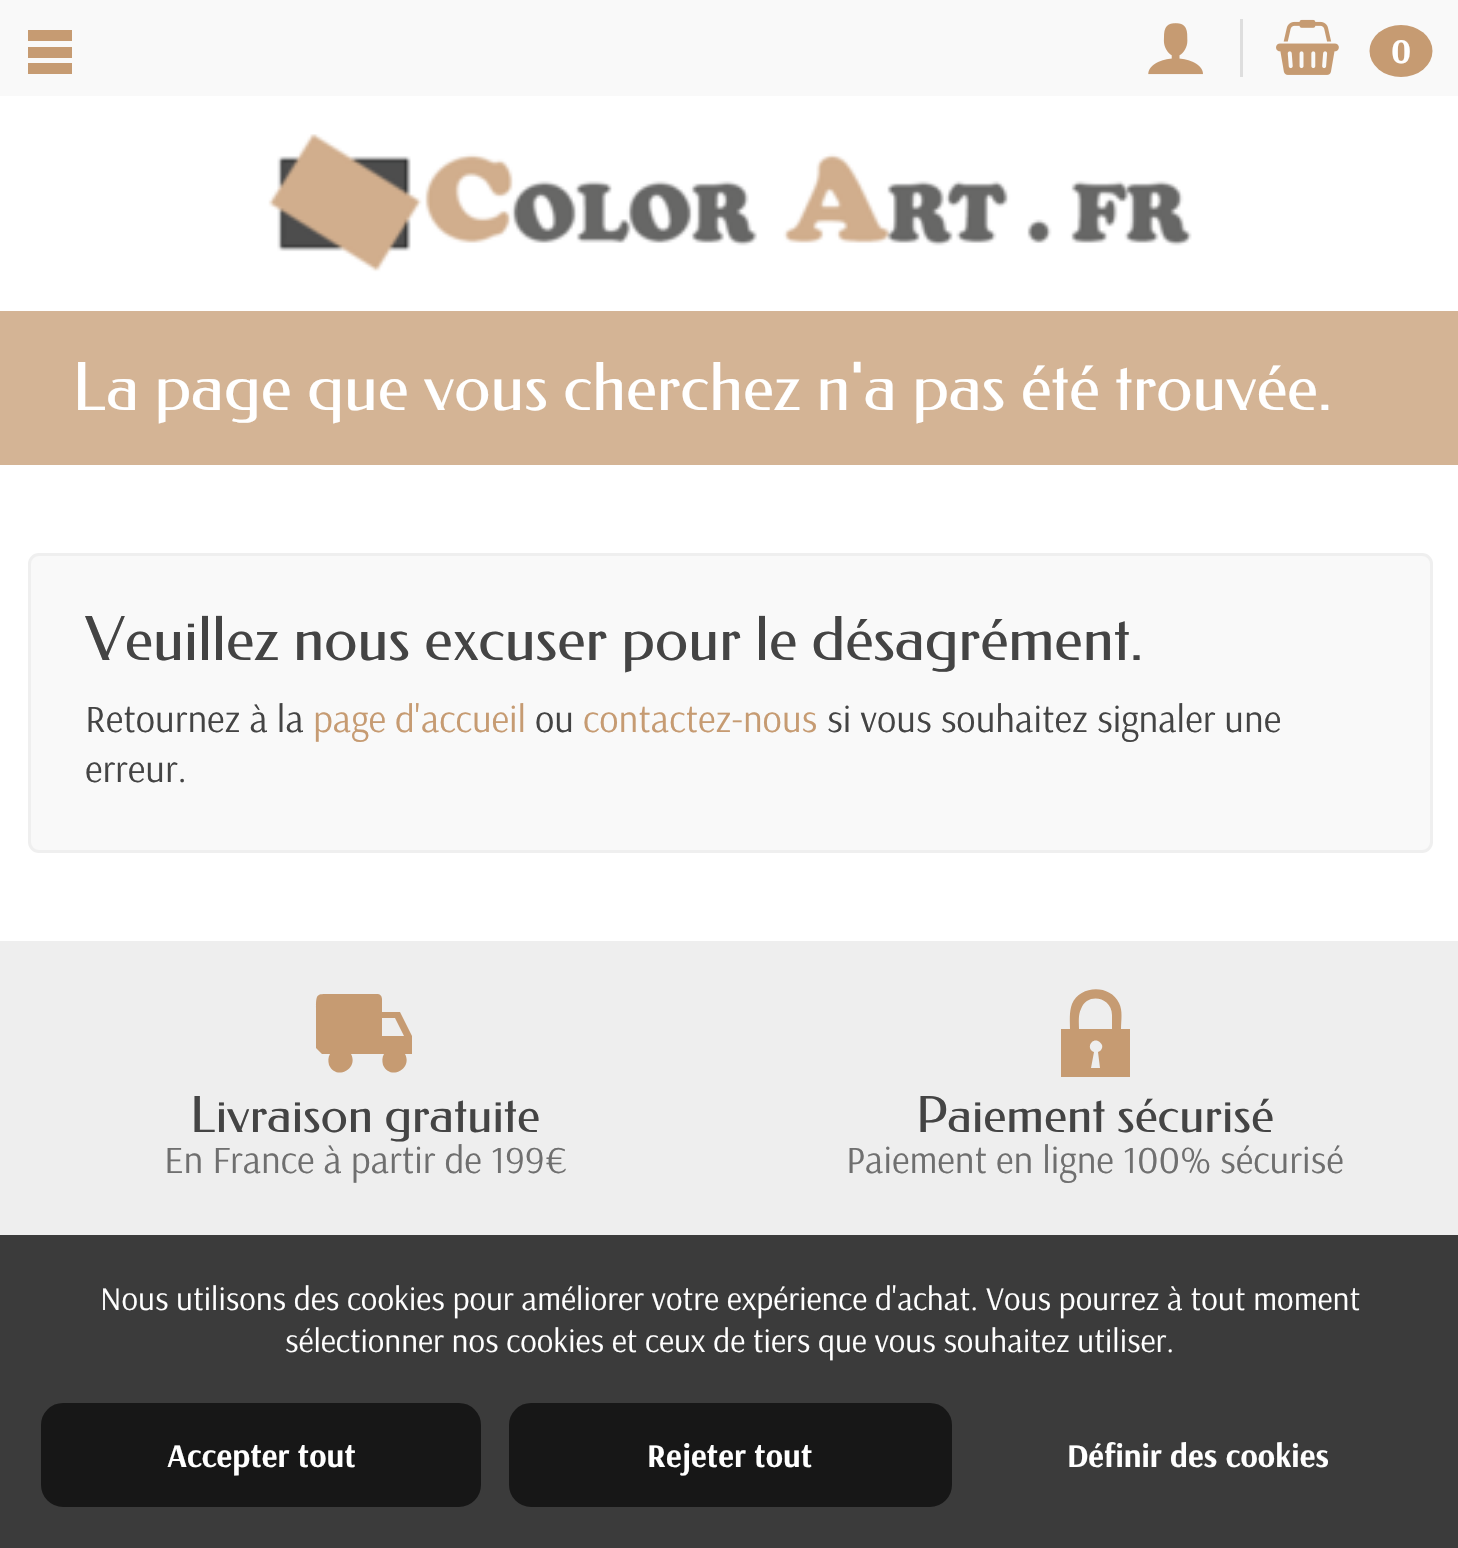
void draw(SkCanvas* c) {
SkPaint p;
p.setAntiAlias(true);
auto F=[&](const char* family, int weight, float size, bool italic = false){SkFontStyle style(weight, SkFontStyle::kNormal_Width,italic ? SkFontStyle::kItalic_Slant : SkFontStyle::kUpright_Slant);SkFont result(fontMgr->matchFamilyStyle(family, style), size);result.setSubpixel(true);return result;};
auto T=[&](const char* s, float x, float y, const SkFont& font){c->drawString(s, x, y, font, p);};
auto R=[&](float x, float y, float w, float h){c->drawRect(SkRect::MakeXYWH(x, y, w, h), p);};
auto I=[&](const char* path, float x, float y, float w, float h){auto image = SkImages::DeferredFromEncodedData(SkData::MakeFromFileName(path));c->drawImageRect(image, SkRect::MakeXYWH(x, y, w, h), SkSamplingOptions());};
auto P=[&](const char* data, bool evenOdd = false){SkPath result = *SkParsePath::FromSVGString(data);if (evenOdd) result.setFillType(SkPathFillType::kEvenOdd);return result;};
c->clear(0xffffffff);
p.setColor(0xfff9f9f9);
R(0,0,1458,96);
p.setColor(0xffc69b72);
c->drawPath(P("M28 30v11h44v-11zm0 28h44v-11h-44zm0 16h44v-11h-44z"),p);
I("1.png",1148,23,55,52);
p.setColor(0xffdedede);
R(1240,19,3,58);
I("2.png",1276,19,63,56);
p.setColor(0xffc69b72);
c->drawOval(SkRect::MakeXYWH(1369.5,25,63,52),p);
auto f1 = F("Arsenal",700,35);
p.setColor(0xffffffff);
T("0",1391,63,f1);
I("3.png",268,134,924,138);
p.setColor(0xffd4b495);
R(0,311,1458,154);
auto f2 = F("Federo",400,66.25);
p.setColor(0xffffffff);
T("La page que vous cherchez n'a pas été trouvée.",72,410,f2);
p.setColor(0xfff9f9f9);
c->drawRoundRect(SkRect::MakeXYWH(29.5,554.5,1402,297),9.5,9.5,p);
p.setStroke(true);
p.setStrokeWidth(3);
p.setColor(0xffefefef);
c->drawRoundRect(SkRect::MakeXYWH(29.5,554.5,1402,297),9.5,9.5,p);
auto f3 = F("Federo",400,60.75);
p.setStroke(false);
p.setColor(0xff444444);
T("Veuillez nous excuser pour le désagrément.",85,660,f3);
auto f4 = F("Arsenal",400,38.5);
T("Retournez à la",85,732,f4);
p.setColor(0xffc69b72);
T("page d'accueil",313,732,f4);
p.setColor(0xff444444);
T("ou",535,732,f4);
p.setColor(0xffc69b72);
T("contactez-nous",583,732,f4);
p.setColor(0xff444444);
T("si vous souhaitez signaler une",827,732,f4);
T("erreur.",85,782,f4);
p.setColor(0xffeeeeee);
R(0,941,1458,294);
p.setColor(0xffc69b72);
c->drawPath(P("M412 1036l-12-24h-18v-8c0-4 1-9-4-10h-47c-14 0-15-1-15 14v40l6 6h8c-2 3-2 7-1 11c7 16 30 4 22-11h33c-2 3-2 7-1 11c7 16 30 4 22-11h7zm-30 0v-18h13l9 18z"),p);
auto f5 = F("Federo",400,49.5);
p.setColor(0xff444444);
T("Livraison gratuite",190,1132,f5);
p.setColor(0xff6f6f6f);
T("En France à partir de 199€",164,1173,f4);
p.setColor(0xffc69b72);
c->drawPath(P("M1061 1077v-48h9c0-8-1-17 2-25c8-19 38-20 47-1c4 8 2 17 2 26h9v48zm33-25l-3 16h9l-2-16c3-1 5-4 4-7c-1-2-2-3-4-4c-7-3-12 8-4 11zm18-37c0-18-25-23-31-6c-3 6-2 13-2 20h33z"),p);
p.setColor(0xff444444);
T("Paiement sécurisé",916,1132,f5);
p.setColor(0xff6f6f6f);
T("Paiement en ligne 100% sécurisé",846,1173,f4);
p.setColor(0xff3b3b3b);
R(0,1235,1458,313);
auto f6 = F("Arsenal",400,33);
p.setColor(0xffffffff);
T("Nous utilisons des cookies pour améliorer votre expérience d'achat. Vous pourrez à tout moment",100,1310,f6);
T("sélectionner nos cookies et ceux de tiers que vous souhaitez utiliser.",285,1352,f6);
p.setColor(0xff171717);
c->drawRoundRect(SkRect::MakeXYWH(42.5,1404.5,437,101),20.5,20.5,p);
p.setStroke(true);
c->drawRoundRect(SkRect::MakeXYWH(42.5,1404.5,437,101),20.5,20.5,p);
auto f7 = F("Arsenal",700,33);
p.setStroke(false);
p.setColor(0xffffffff);
T("Accepter tout",167,1467,f7);
p.setColor(0xff171717);
c->drawRoundRect(SkRect::MakeXYWH(510.5,1404.5,440,101),20.5,20.5,p);
p.setStroke(true);
c->drawRoundRect(SkRect::MakeXYWH(510.5,1404.5,440,101),20.5,20.5,p);
p.setStroke(false);
p.setColor(0xffffffff);
T("Rejeter tout",647,1467,f7);
T("Définir des cookies",1067,1467,f7);
}
